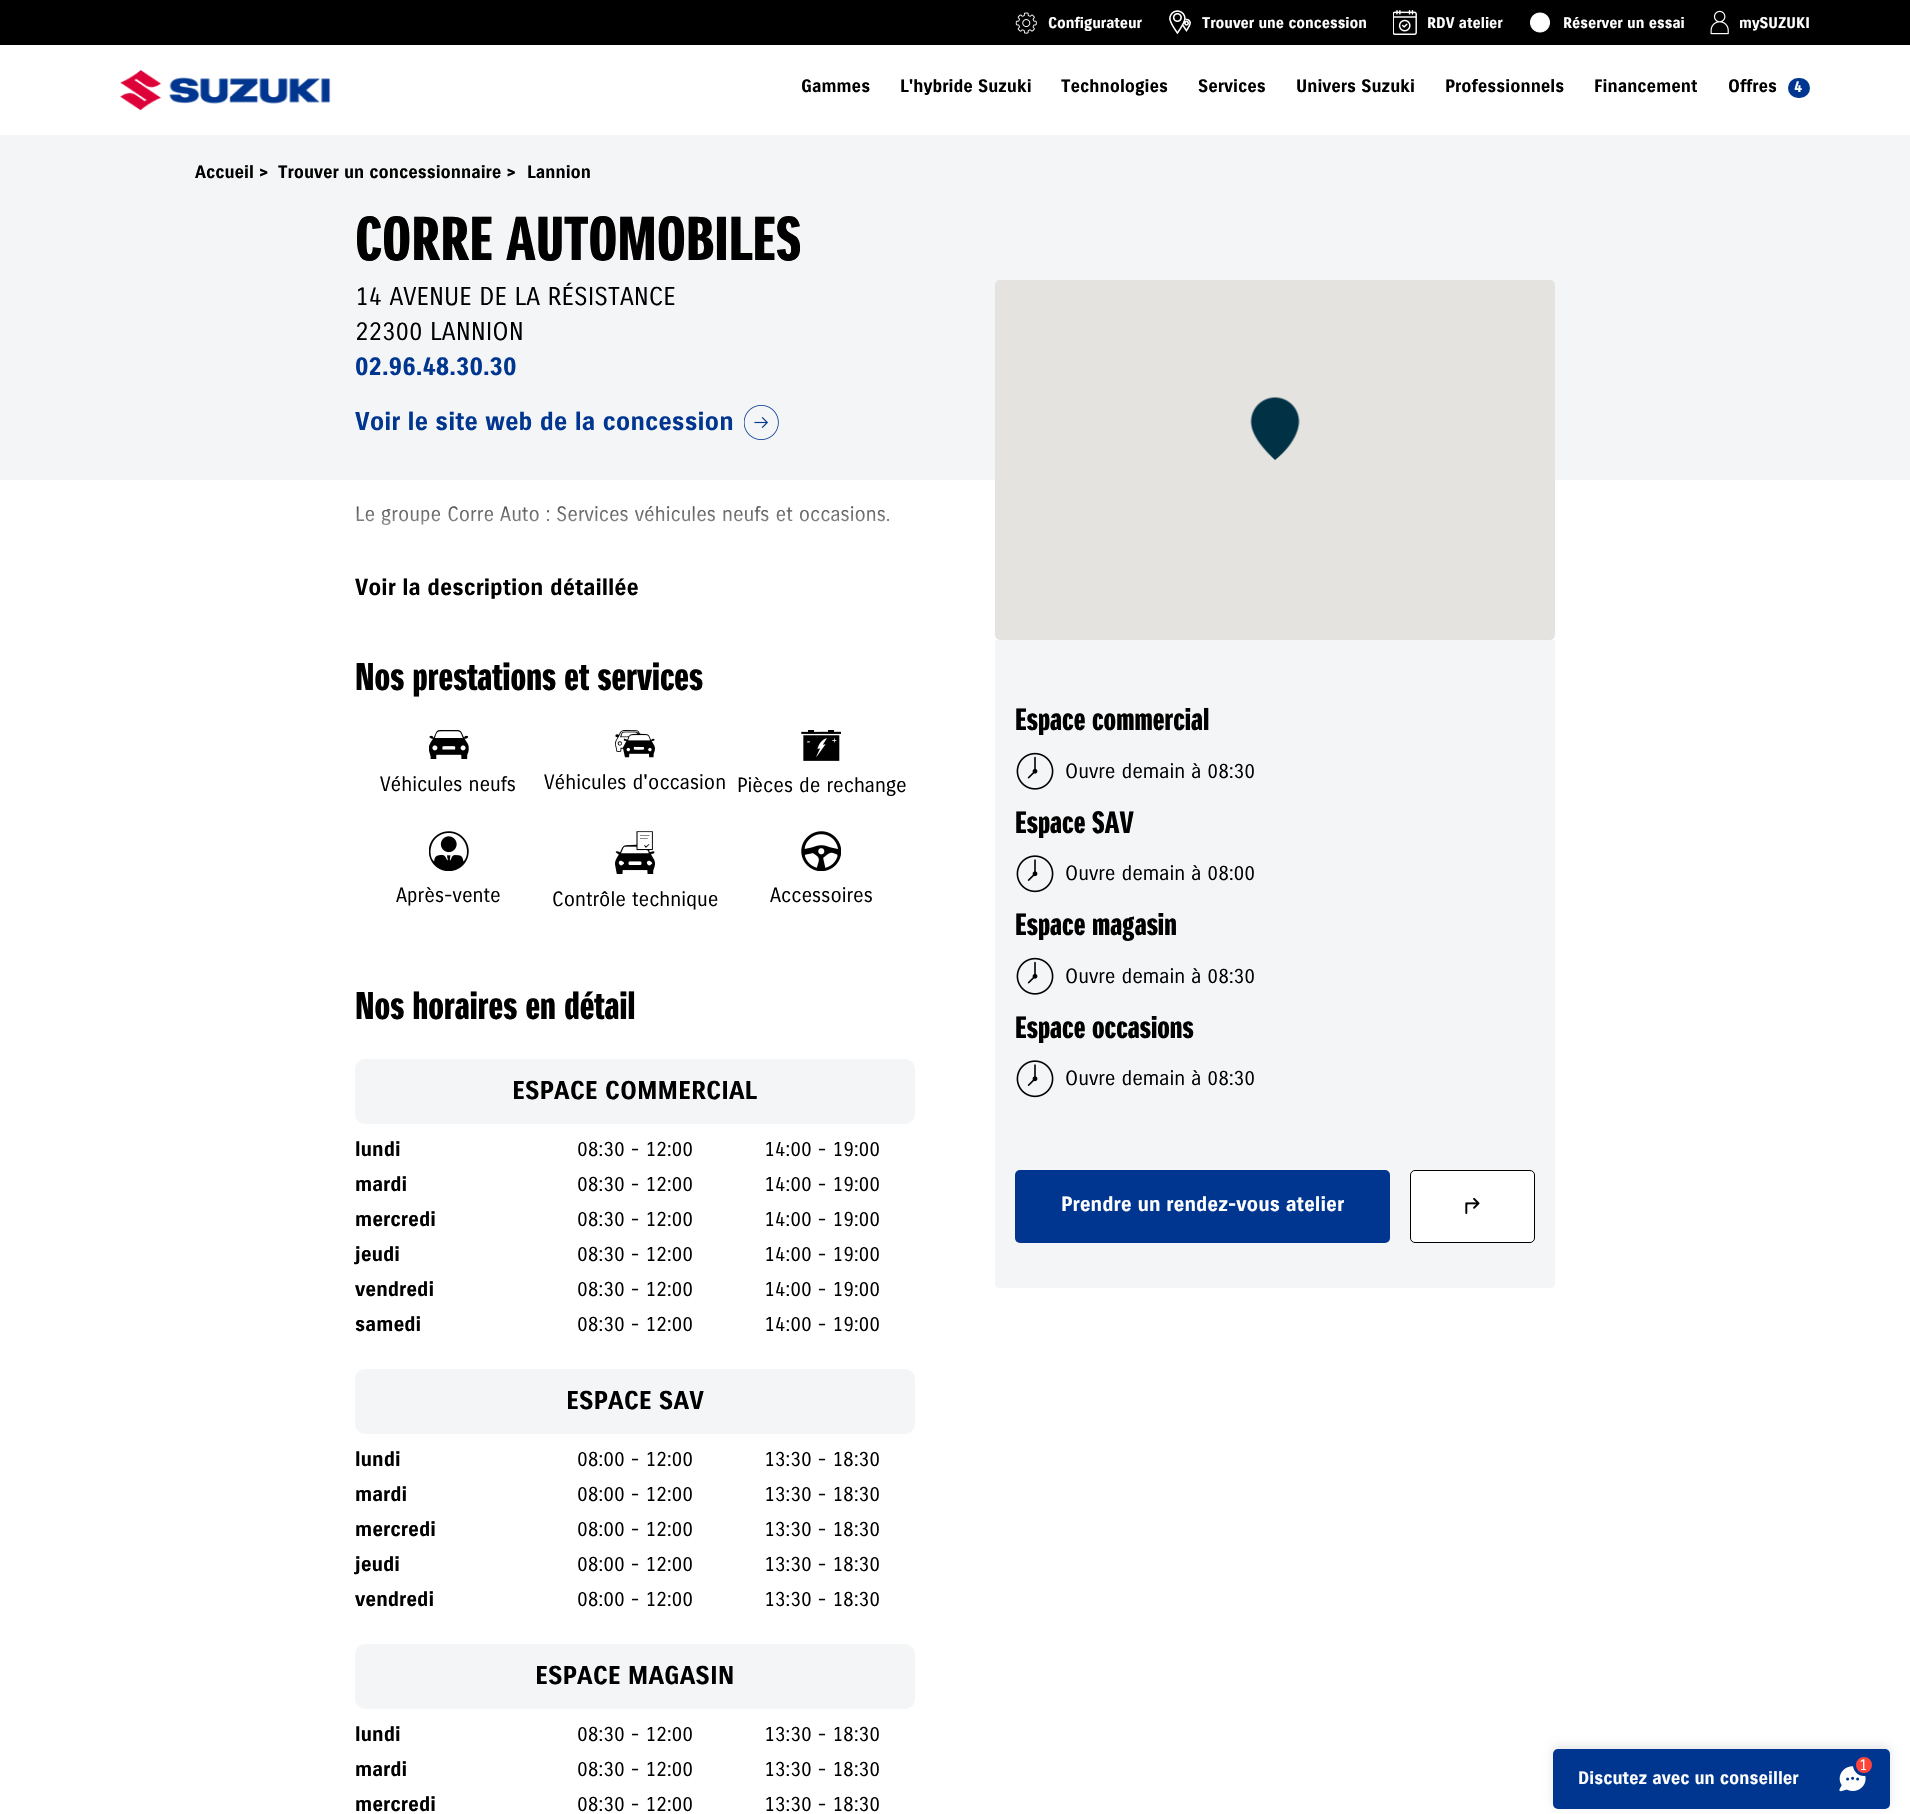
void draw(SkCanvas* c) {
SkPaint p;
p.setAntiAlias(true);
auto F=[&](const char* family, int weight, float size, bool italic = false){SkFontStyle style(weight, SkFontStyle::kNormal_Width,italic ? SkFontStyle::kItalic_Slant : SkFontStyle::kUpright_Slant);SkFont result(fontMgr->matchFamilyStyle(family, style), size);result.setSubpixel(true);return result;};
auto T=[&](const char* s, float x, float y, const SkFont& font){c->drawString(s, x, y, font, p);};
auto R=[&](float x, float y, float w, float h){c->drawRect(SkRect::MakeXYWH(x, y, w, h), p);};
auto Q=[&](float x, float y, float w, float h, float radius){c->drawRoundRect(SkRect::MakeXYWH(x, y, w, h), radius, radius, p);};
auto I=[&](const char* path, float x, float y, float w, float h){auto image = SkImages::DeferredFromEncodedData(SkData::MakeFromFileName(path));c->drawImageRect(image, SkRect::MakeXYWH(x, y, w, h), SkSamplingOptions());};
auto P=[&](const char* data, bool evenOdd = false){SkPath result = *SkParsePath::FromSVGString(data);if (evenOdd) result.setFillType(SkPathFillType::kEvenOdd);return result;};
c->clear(0xffffffff);
p.setColor(0xff000000);
R(0,0,1910,45);
I("1.png",1015,12,22,22);
auto f1 = F("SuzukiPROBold",700,15);
p.setColor(0xffffffff);
T("Configurateur",1048,28,f1);
I("2.png",1169,10,22,25);
T("Trouver une concession",1202,28,f1);
I("3.png",1393,10,24,25);
T("RDV atelier",1427,28,f1);
I("4.png",1530,12,20,21);
T("Réserver un essai",1563,28,f1);
I("5.png",1710,10,19,25);
T("mySUZUKI",1739,28,f1);
I("6.png",120,70,211,40);
auto f2 = F("SuzukiPROBold",700,17.5);
p.setColor(0xff000000);
T("Gammes",801,92,f2);
T("L'hybride Suzuki",900,92,f2);
T("Technologies",1061,92,f2);
T("Services",1198,92,f2);
T("Univers Suzuki",1296,92,f2);
T("Professionnels",1445,92,f2);
T("Financement",1594,92,f2);
T("Offres",1728,92,f2);
p.setColor(0xff00368f);
Q(1788,78,22,20,10);
p.setColor(0xffffffff);
T("4",1794,92,f1);
p.setColor(0xfff4f5f6);
R(0,135,1910,345);
p.setColor(0xff000000);
T("Accueil >",195,178,f2);
T("Trouver un concessionnaire >",278,178,f2);
T("Lannion",527,178,f2);
auto f3 = F("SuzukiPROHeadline",700,60);
T("CORRE AUTOMOBILES",355,260,f3);
auto f4 = F("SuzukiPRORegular",400,25);
T("14 AVENUE DE LA RÉSISTANCE",355,305,f4);
T("22300 LANNION",355,340,f4);
auto f5 = F("SuzukiPROBold",700,25);
p.setColor(0xff00368f);
T("02.96.48.30.30",355,375,f5);
T("Voir le site web de la concession",355,430,f5);
I("7.png",744,405,35,35);
auto f6 = F("SuzukiPRORegular",400,20);
p.setColor(0xff000000);
T("Le groupe Corre Auto : Services véhicules neufs et occasions.",355,521,f6);
{
const SkColor colors[] = {0xffffffff,0x00ffffff};
const float stops[] = {0,1};
const SkPoint ends[] = {{635,560}, {635,480}};
p.setShader(SkGradientShader::MakeLinear(ends, colors, stops, 2, SkTileMode::kClamp));
p.setAlpha(255);
}
R(356,506,534,19);
auto f7 = F("SuzukiPROBold",700,22.5);
p.setShader(nullptr);
p.setColor(0xff000000);
T("Voir la description détaillée",355,595,f7);
auto f8 = F("SuzukiPROHeadline",700,37.5);
T("Nos prestations et services",355,690,f8);
I("8.png",429,730,40,29);
T("Véhicules neufs",380,791,f6);
I("9.png",615,730,40,28);
T("Véhicules d'occasion",544,789,f6);
I("10.png",801,730,40,31);
auto f9 = F("Liberation Serif",700,9);
p.setColor(0xffffffff);
T("-",807,744,f9);
auto f10 = F("Liberation Serif",700,8);
T("+",832,743,f10);
p.setColor(0xff000000);
T("Pièces de rechange",737,792,f6);
I("11.png",429,831,40,40);
T("Après-vente",396,902,f6);
I("12.png",615,831,40,43);
T("Contrôle technique",552,906,f6);
I("13.png",801,831,40,40);
T("Accessoires",770,902,f6);
T("Nos horaires en détail",355,1019,f8);
p.setColor(0xfff4f5f6);
Q(355,1059,560,65,10);
p.setColor(0xff000000);
T("ESPACE COMMERCIAL",512,1099,f5);
auto f11 = F("SuzukiPROBold",700,20);
T("lundi",355,1156,f11);
T("08:30 - 12:00",577,1156,f6);
T("14:00 - 19:00",764,1156,f6);
T("mardi",355,1191,f11);
T("08:30 - 12:00",577,1191,f6);
T("14:00 - 19:00",764,1191,f6);
T("mercredi",355,1226,f11);
T("08:30 - 12:00",577,1226,f6);
T("14:00 - 19:00",764,1226,f6);
T("jeudi",355,1261,f11);
T("08:30 - 12:00",577,1261,f6);
T("14:00 - 19:00",764,1261,f6);
T("vendredi",355,1296,f11);
T("08:30 - 12:00",577,1296,f6);
T("14:00 - 19:00",764,1296,f6);
T("samedi",355,1331,f11);
T("08:30 - 12:00",577,1331,f6);
T("14:00 - 19:00",764,1331,f6);
p.setColor(0xfff4f5f6);
Q(355,1369,560,65,10);
p.setColor(0xff000000);
T("ESPACE SAV",566,1409,f5);
T("lundi",355,1466,f11);
T("08:00 - 12:00",577,1466,f6);
T("13:30 - 18:30",764,1466,f6);
T("mardi",355,1501,f11);
T("08:00 - 12:00",577,1501,f6);
T("13:30 - 18:30",764,1501,f6);
T("mercredi",355,1536,f11);
T("08:00 - 12:00",577,1536,f6);
T("13:30 - 18:30",764,1536,f6);
T("jeudi",355,1571,f11);
T("08:00 - 12:00",577,1571,f6);
T("13:30 - 18:30",764,1571,f6);
T("vendredi",355,1606,f11);
T("08:00 - 12:00",577,1606,f6);
T("13:30 - 18:30",764,1606,f6);
p.setColor(0xfff4f5f6);
Q(355,1644,560,65,10);
p.setColor(0xff000000);
T("ESPACE MAGASIN",535,1684,f5);
T("lundi",355,1741,f11);
T("08:30 - 12:00",577,1741,f6);
T("13:30 - 18:30",764,1741,f6);
T("mardi",355,1776,f11);
T("08:30 - 12:00",577,1776,f6);
T("13:30 - 18:30",764,1776,f6);
T("mercredi",355,1811,f11);
T("08:30 - 12:00",577,1811,f6);
T("13:30 - 18:30",764,1811,f6);
p.setColor(0xffe5e3df);
Q(995,280,560,360,5);
I("14.png",1250,397,50,63);
p.setColor(0xfff4f5f6);
c->drawPath(P("M995 640h560v643c0 3-2 5-5 5h-550c-3 0-5-2-5-5z"),p);
auto f12 = F("SuzukiPROHeadline",700,30);
p.setColor(0xff000000);
T("Espace commercial",1015,730,f12);
I("15.png",1016,752,38,38);
T("Ouvre demain à 08:30",1065,778,f6);
T("Espace SAV",1015,833,f12);
I("16.png",1016,855,38,38);
T("Ouvre demain à 08:00",1065,880,f6);
T("Espace magasin",1015,935,f12);
I("15.png",1016,957,38,38);
T("Ouvre demain à 08:30",1065,983,f6);
T("Espace occasions",1015,1038,f12);
I("16.png",1016,1060,38,38);
T("Ouvre demain à 08:30",1065,1085,f6);
p.setColor(0xff00368f);
Q(1015,1170,375,73,5);
p.setColor(0xffffffff);
T("Prendre un rendez-vous atelier",1061,1211,f11);
c->drawRoundRect(SkRect::MakeXYWH(1410.5,1170.5,124,72),4.5,4.5,p);
p.setStroke(true);
p.setStrokeWidth(1);
p.setColor(0xff000000);
c->drawRoundRect(SkRect::MakeXYWH(1410.5,1170.5,124,72),4.5,4.5,p);
I("17.png",1465,1197,15,17);
p.setStroke(false);
p.setColor(0x1a000000);
p.setMaskFilter(SkMaskFilter::MakeBlur(kNormal_SkBlurStyle, 5));
c->drawRoundRect(SkRect::MakeXYWH(1553,1746,337,60),5,5,p);
p.setMaskFilter(nullptr);
p.setColor(0xff00368f);
Q(1553,1749,337,60,5);
I("18.png",1839,1766,27,26);
p.setColor(0xffff443a);
c->drawCircle(1864,1765,9.5,p);
p.setStroke(true);
p.setStrokeWidth(3);
p.setColor(0xff00368f);
c->drawCircle(1864,1765,9.5,p);
auto f13 = F("SuzukiPRORegular",400,15);
p.setStroke(false);
p.setColor(0xffffffff);
T("1",1859,1770,f13);
T("Discutez avec un conseiller",1578,1784,f2);
}
